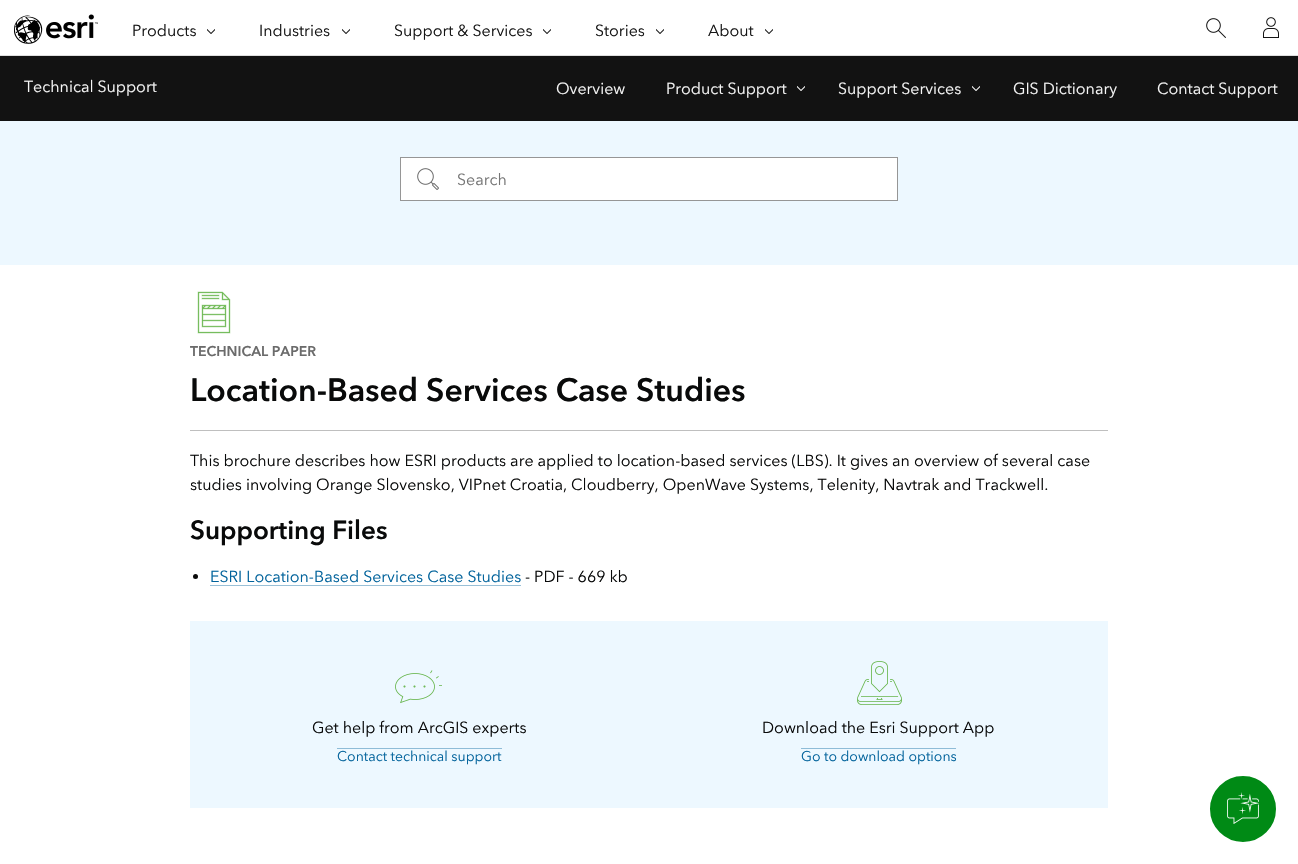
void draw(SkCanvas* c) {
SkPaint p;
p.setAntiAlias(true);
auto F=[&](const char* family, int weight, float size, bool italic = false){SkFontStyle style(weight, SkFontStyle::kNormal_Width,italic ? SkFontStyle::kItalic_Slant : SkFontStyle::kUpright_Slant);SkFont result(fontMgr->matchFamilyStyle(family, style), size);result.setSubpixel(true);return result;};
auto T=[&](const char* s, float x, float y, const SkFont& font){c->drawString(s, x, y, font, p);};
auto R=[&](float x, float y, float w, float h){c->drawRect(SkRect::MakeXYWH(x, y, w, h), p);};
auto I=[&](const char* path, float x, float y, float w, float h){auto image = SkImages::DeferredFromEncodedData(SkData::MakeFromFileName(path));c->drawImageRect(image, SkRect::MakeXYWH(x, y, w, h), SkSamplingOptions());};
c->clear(0xffffffff);
p.setColor(0xffdfdfdf);
R(0,55,1298,1);
I("1.png",14,14,84,30);
auto f1 = F("Avenir Next",400,16);
p.setColor(0xff151515);
T("Products",132,36,f1);
I("2.png",207,29,8,5);
T("Industries",259,36,f1);
I("2.png",342,29,8,5);
T("Support & Services",394,36,f1);
I("2.png",543,29,8,5);
T("Stories",595,36,f1);
I("2.png",656,29,8,5);
T("About",708,36,f1);
I("2.png",765,29,8,5);
I("3.png",1206,18,20,20);
I("4.png",1263,17,16,21);
p.setColor(0xff121212);
R(0,56,1298,65);
p.setColor(0xfff6f6f6);
T("Technical Support",24,92,f1);
T("Overview",556,94,f1);
T("Product Support",666,94,f1);
I("5.png",797,86,8,5);
T("Support Services",838,94,f1);
I("5.png",972,86,8,5);
T("GIS Dictionary",1013,94,f1);
T("Contact Support",1157,94,f1);
p.setColor(0xffedf8ff);
R(0,121,1298,144);
p.setColor(0xffffffff);
c->drawRect(SkRect::MakeXYWH(400.5,157.5,497,43),p);
p.setStroke(true);
p.setStrokeWidth(1);
p.setColor(0xff969696);
c->drawRect(SkRect::MakeXYWH(400.5,157.5,497,43),p);
I("6.png",417,168,22,22);
p.setStroke(false);
p.setColor(0xff757575);
T("Search",457,185,f1);
I("7.png",197,291,34,43);
auto f2 = F("Avenir Next",700,14);
p.setColor(0xff6b6b6b);
T("TECHNICAL PAPER",190,356,f2);
auto f3 = F("Avenir Next",700,32);
p.setColor(0xff090a0a);
T("Location-Based Services Case Studies",190,401,f3);
p.setColor(0xffbfbfbf);
R(190,430,918,1);
p.setColor(0xff090a0a);
T("This brochure describes how ESRI products are applied to location-based services (LBS). It gives an overview of several case",190,466,f1);
T("studies involving Orange Slovensko, VIPnet Croatia, Cloudberry, OpenWave Systems, Telenity, Navtrak and Trackwell.",190,490,f1);
auto f4 = F("Avenir Next",700,26);
T("Supporting Files",190,539,f4);
p.setColor(0xff0a0a0a);
c->drawCircle(195.5,576.5,2.5,p);
p.setColor(0xff00629b);
T("ESRI Location-Based Services Case Studies",210,582,f1);
p.setColor(0xff99c0d7);
R(210,585,311,1);
p.setColor(0xff090a0a);
T("- PDF - 669 kb",525,582,f1);
p.setColor(0xffedf8ff);
R(190,621,918,187);
I("8.png",395,670,47,34);
p.setColor(0xff090a0a);
T("Get help from ArcGIS experts",312,733,f1);
p.setColor(0xff8ebcd7);
R(337,748,165,1);
auto f5 = F("Avenir Next",400,14);
p.setColor(0xff00629b);
T("Contact technical support",337,761,f5);
I("9.png",857,661,45,44);
p.setColor(0xff090a0a);
T("Download the Esri Support App",762,733,f1);
p.setColor(0xff8ebcd7);
R(801,748,155,1);
p.setColor(0xff00629b);
T("Go to download options",801,761,f5);
p.setColor(0xff008a15);
c->drawCircle(1243,809,34,p);
p.setStroke(true);
p.setStrokeWidth(2);
p.setColor(0xffffffff);
c->drawCircle(1243,809,34,p);
I("10.png",1227,792,33,32);
}
